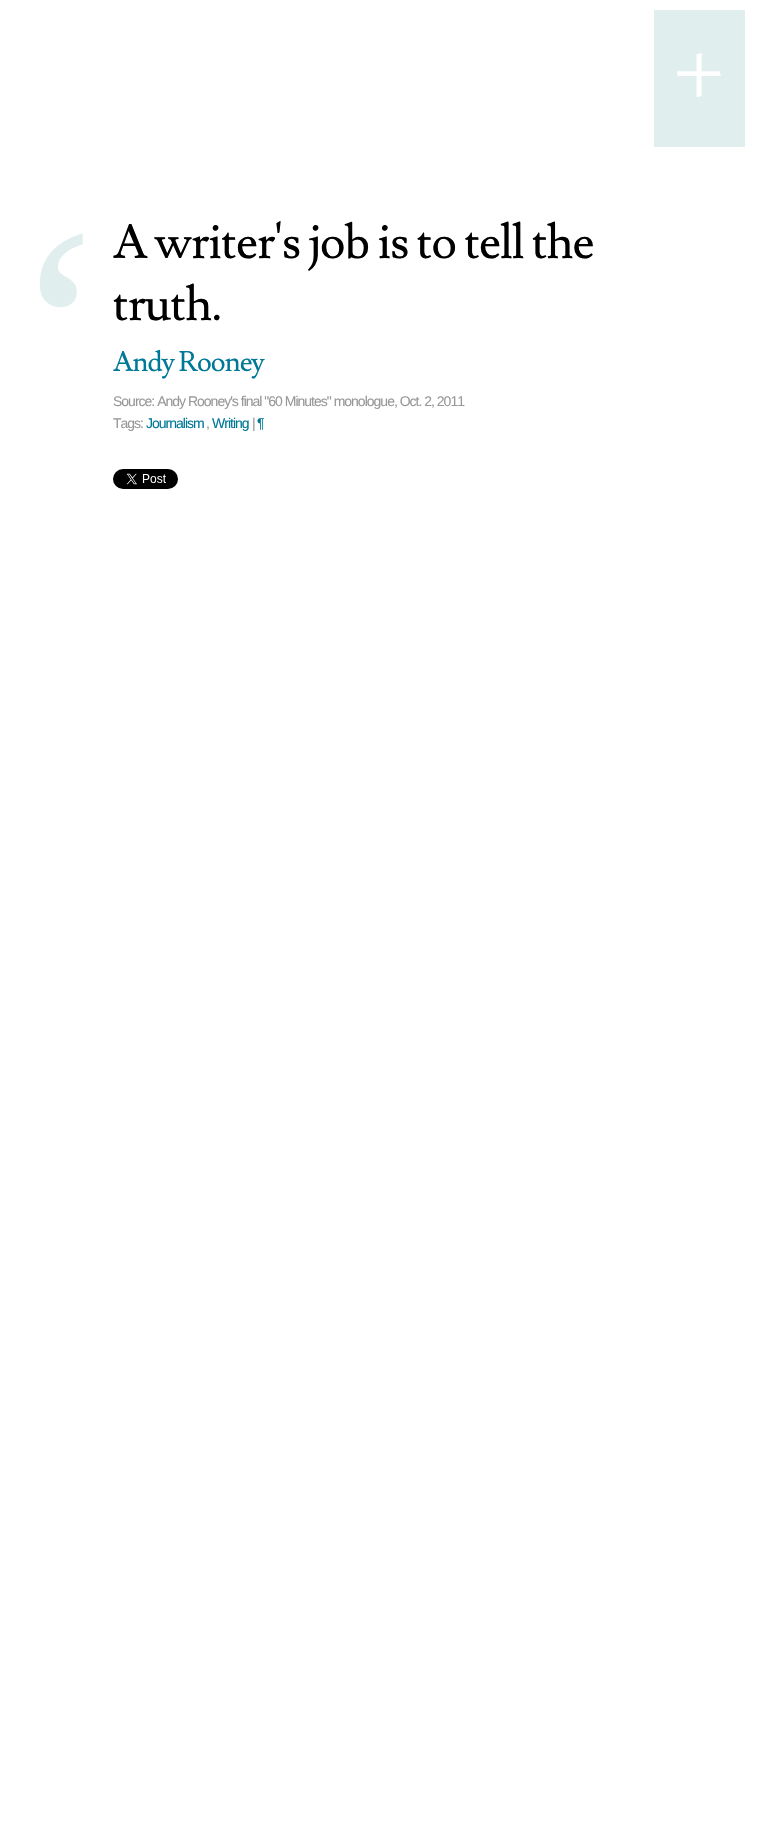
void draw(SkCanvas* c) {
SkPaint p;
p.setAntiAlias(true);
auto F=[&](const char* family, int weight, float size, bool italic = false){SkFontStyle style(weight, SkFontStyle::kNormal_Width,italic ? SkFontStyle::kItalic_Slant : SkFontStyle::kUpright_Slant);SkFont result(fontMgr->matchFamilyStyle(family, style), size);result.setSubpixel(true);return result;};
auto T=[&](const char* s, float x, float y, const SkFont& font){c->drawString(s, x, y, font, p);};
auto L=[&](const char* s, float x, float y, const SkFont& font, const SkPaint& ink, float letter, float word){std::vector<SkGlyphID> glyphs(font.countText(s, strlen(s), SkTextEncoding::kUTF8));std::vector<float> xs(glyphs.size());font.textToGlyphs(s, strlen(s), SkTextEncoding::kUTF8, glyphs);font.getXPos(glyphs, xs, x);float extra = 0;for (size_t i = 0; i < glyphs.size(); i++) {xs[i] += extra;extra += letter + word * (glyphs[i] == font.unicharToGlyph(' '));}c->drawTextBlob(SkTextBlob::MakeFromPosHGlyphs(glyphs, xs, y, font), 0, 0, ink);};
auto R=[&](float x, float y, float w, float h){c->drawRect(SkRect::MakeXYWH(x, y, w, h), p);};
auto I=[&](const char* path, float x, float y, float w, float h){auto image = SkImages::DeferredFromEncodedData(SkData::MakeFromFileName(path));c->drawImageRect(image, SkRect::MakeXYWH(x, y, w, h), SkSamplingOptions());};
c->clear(0xffffffff);
p.setColor(0xffe0eeee);
R(654,10,91,137);
auto f1 = F("Lusitana",400,90);
p.setColor(0xffffffff);
T("+",674,96,f1);
auto f2 = F("Liberation Serif",400,288);
p.setColor(0xffe0eeee);
L("‘",12,425,f2,p,-1,0);
auto f3 = F("Lusitana",400,48);
p.setColor(0xff000000);
L("A writer's job is to tell the",113,258,f3,p,-1,0);
L("truth.",113,320,f3,p,-1,0);
auto f4 = F("Lusitana",400,28);
p.setColor(0xff007998);
L("Andy Rooney",113,371,f4,p,-1,0);
auto f5 = F("Liberation Sans",400,14);
p.setColor(0xff989898);
L("Source: Andy Rooney's final \"60 Minutes\" monologue, Oct. 2, 2011",113,406,f5,p,-1,0);
L("Tags:",113,428,f5,p,-1,0);
p.setColor(0xff007998);
L("Journalism",146,428,f5,p,-1,0);
p.setColor(0xff989898);
L(",",206,428,f5,p,-1,0);
p.setColor(0xff007998);
L("Writing",212,428,f5,p,-1,0);
p.setColor(0xff989898);
L("|",252,428,f5,p,-1,0);
p.setColor(0xff007998);
L("¶",257,428,f5,p,-1,0);
I("1.png",113,469,65,20);
}
